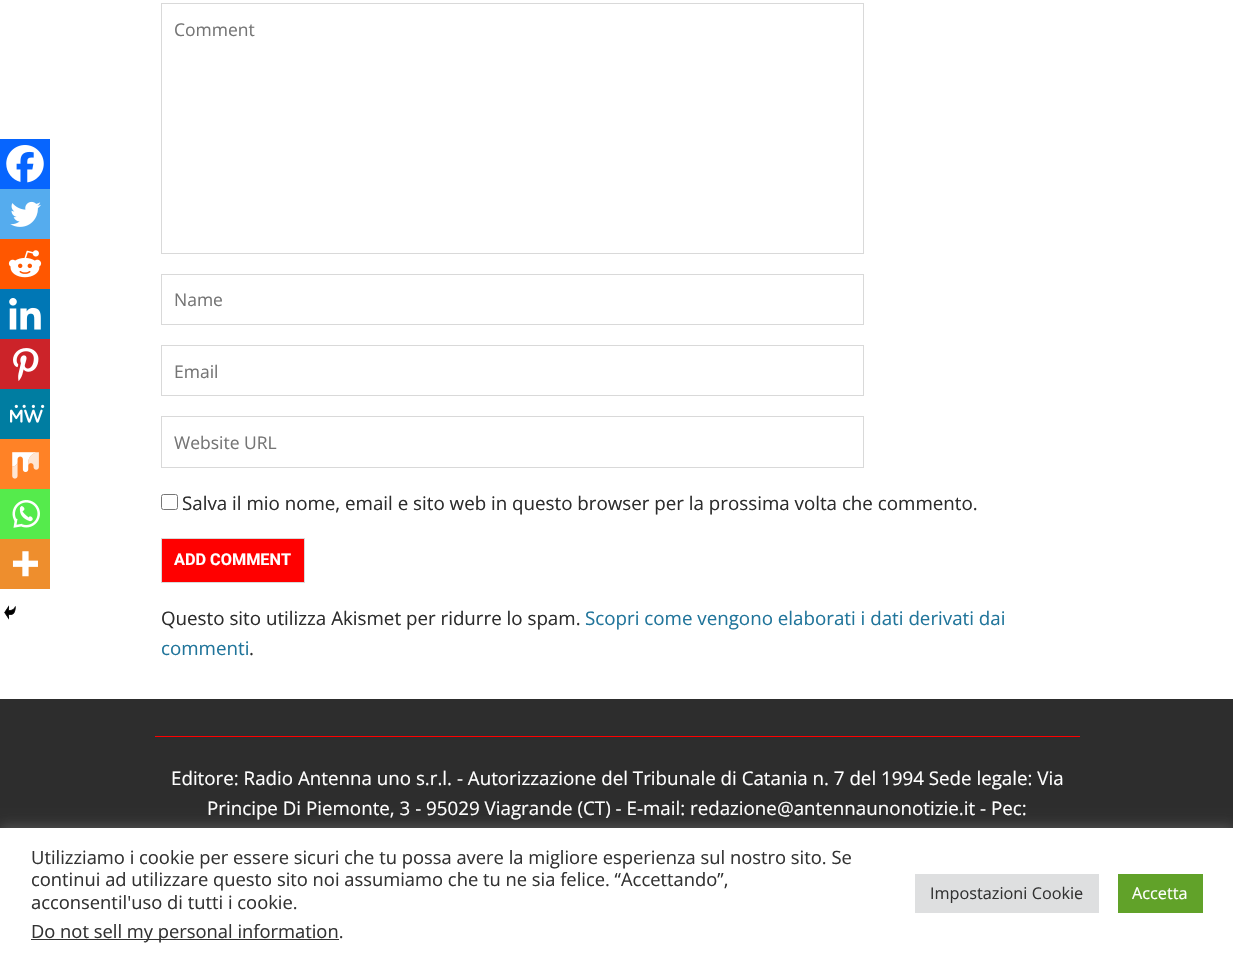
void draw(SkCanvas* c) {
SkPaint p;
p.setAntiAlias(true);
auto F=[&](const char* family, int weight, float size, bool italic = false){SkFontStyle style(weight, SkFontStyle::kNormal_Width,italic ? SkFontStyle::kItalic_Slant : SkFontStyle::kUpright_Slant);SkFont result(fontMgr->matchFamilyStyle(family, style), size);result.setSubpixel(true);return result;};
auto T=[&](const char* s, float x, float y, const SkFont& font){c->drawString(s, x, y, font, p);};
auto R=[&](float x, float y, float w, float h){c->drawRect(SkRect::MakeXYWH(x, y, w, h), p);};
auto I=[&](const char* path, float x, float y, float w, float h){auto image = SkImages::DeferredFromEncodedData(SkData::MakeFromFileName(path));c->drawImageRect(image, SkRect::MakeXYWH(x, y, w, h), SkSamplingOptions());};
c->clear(0xffffffff);
p.setColor(0xff0765fe);
R(0,139,50,50);
I("1.png",6,145,38,38);
p.setColor(0xff55acee);
R(0,189,50,50);
I("2.png",10,201,31,26);
p.setColor(0xffff5700);
R(0,239,50,50);
I("3.png",8,250,34,28);
p.setColor(0xff0077b5);
R(0,289,50,50);
I("4.png",9,298,32,32);
p.setColor(0xffcc2329);
R(0,339,50,50);
I("5.png",13,348,26,33);
p.setColor(0xff007da1);
R(0,389,50,50);
I("6.png",10,404,35,19);
p.setColor(0xffff8226);
R(0,439,50,50);
I("7.png",12,452,27,27);
p.setColor(0xff55eb4c);
R(0,489,50,50);
I("8.png",12,500,28,28);
p.setColor(0xffee8e2d);
R(0,539,50,50);
I("9.png",12,551,26,26);
I("10.png",4,605,12,15);
p.setStroke(true);
p.setStrokeWidth(1);
p.setColor(0xffd9d9d9);
c->drawRect(SkRect::MakeXYWH(161.5,3.5,702,250),p);
auto f1 = F("Open Sans",400,17.5);
p.setStroke(false);
p.setColor(0xff757575);
T("Comment",174,36,f1);
p.setStroke(true);
p.setColor(0xffd9d9d9);
c->drawRect(SkRect::MakeXYWH(161.5,274.5,702,50),p);
p.setStroke(false);
p.setColor(0xff757575);
T("Name",174,306,f1);
p.setStroke(true);
p.setColor(0xffd9d9d9);
c->drawRect(SkRect::MakeXYWH(161.5,345.5,702,50),p);
p.setStroke(false);
p.setColor(0xff757575);
T("Email",174,378,f1);
p.setStroke(true);
p.setColor(0xffd9d9d9);
c->drawRect(SkRect::MakeXYWH(161.5,416.5,702,51),p);
p.setStroke(false);
p.setColor(0xff757575);
T("Website URL",174,449,f1);
p.setStroke(true);
p.setColor(0xff767676);
c->drawRoundRect(SkRect::MakeXYWH(161.5,494.5,16,15),2,2,p);
auto f2 = F("Open Sans",400,18.75);
p.setStroke(false);
p.setColor(0xff2d2d2d);
T("Salva il mio nome, email e sito web in questo browser per la prossima volta che commento.",182,510,f2);
p.setColor(0xffff0000);
c->drawRect(SkRect::MakeXYWH(161.5,538.5,143,44),p);
p.setStroke(true);
p.setColor(0xffd9d9d9);
c->drawRect(SkRect::MakeXYWH(161.5,538.5,143,44),p);
auto f3 = F("Roboto",700,16.25);
p.setStroke(false);
p.setColor(0xffffffff);
T("ADD COMMENT",174,565,f3);
p.setColor(0xff2d2d2d);
T("Questo sito utilizza Akismet per ridurre lo spam.",161,625,f2);
p.setColor(0xff21759b);
T("Scopri come vengono elaborati i dati derivati dai",585,625,f2);
T("commenti",161,655,f2);
p.setColor(0xff2d2d2d);
T(".",249,655,f2);
R(0,699,1233,129);
p.setColor(0xffff0000);
R(155,736,925,1);
p.setColor(0xffffffff);
T("Editore: Radio Antenna uno s.r.l. - Autorizzazione del Tribunale di Catania n. 7 del 1994 Sede legale: Via",171,785,f2);
T("Principe Di Piemonte, 3 - 95029 Viagrande (CT) - E-mail: redazione@antennaunonotizie.it - Pec:",207,815,f2);
p.setColor(0x4dacabab);
p.setMaskFilter(SkMaskFilter::MakeBlur(kNormal_SkBlurStyle, 6));
c->drawRect(SkRect::MakeXYWH(0,826,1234,132),p);
p.setMaskFilter(nullptr);
p.setColor(0xffffffff);
R(0,828,1233,130);
auto f4 = F("Open Sans",400,18.35);
p.setColor(0xff333333);
T("Utilizziamo i cookie per essere sicuri che tu possa avere la migliore esperienza sul nostro sito. Se",31,864,f4);
T("continui ad utilizzare questo sito noi assumiamo che tu ne sia felice. “Accettando”,",31,886,f4);
T("acconsentil'uso di tutti i cookie.",31,909,f4);
R(31,939,308,1);
T("Do not sell my personal information.",31,938,f4);
p.setColor(0xffdedfe0);
R(915,874,184,39);
auto f5 = F("Open Sans",400,16.25);
p.setColor(0xff333333);
T("Impostazioni Cookie",930,899,f5);
p.setColor(0xff61a229);
R(1118,874,85,39);
p.setColor(0xffffffff);
T("Accetta",1132,899,f5);
}
